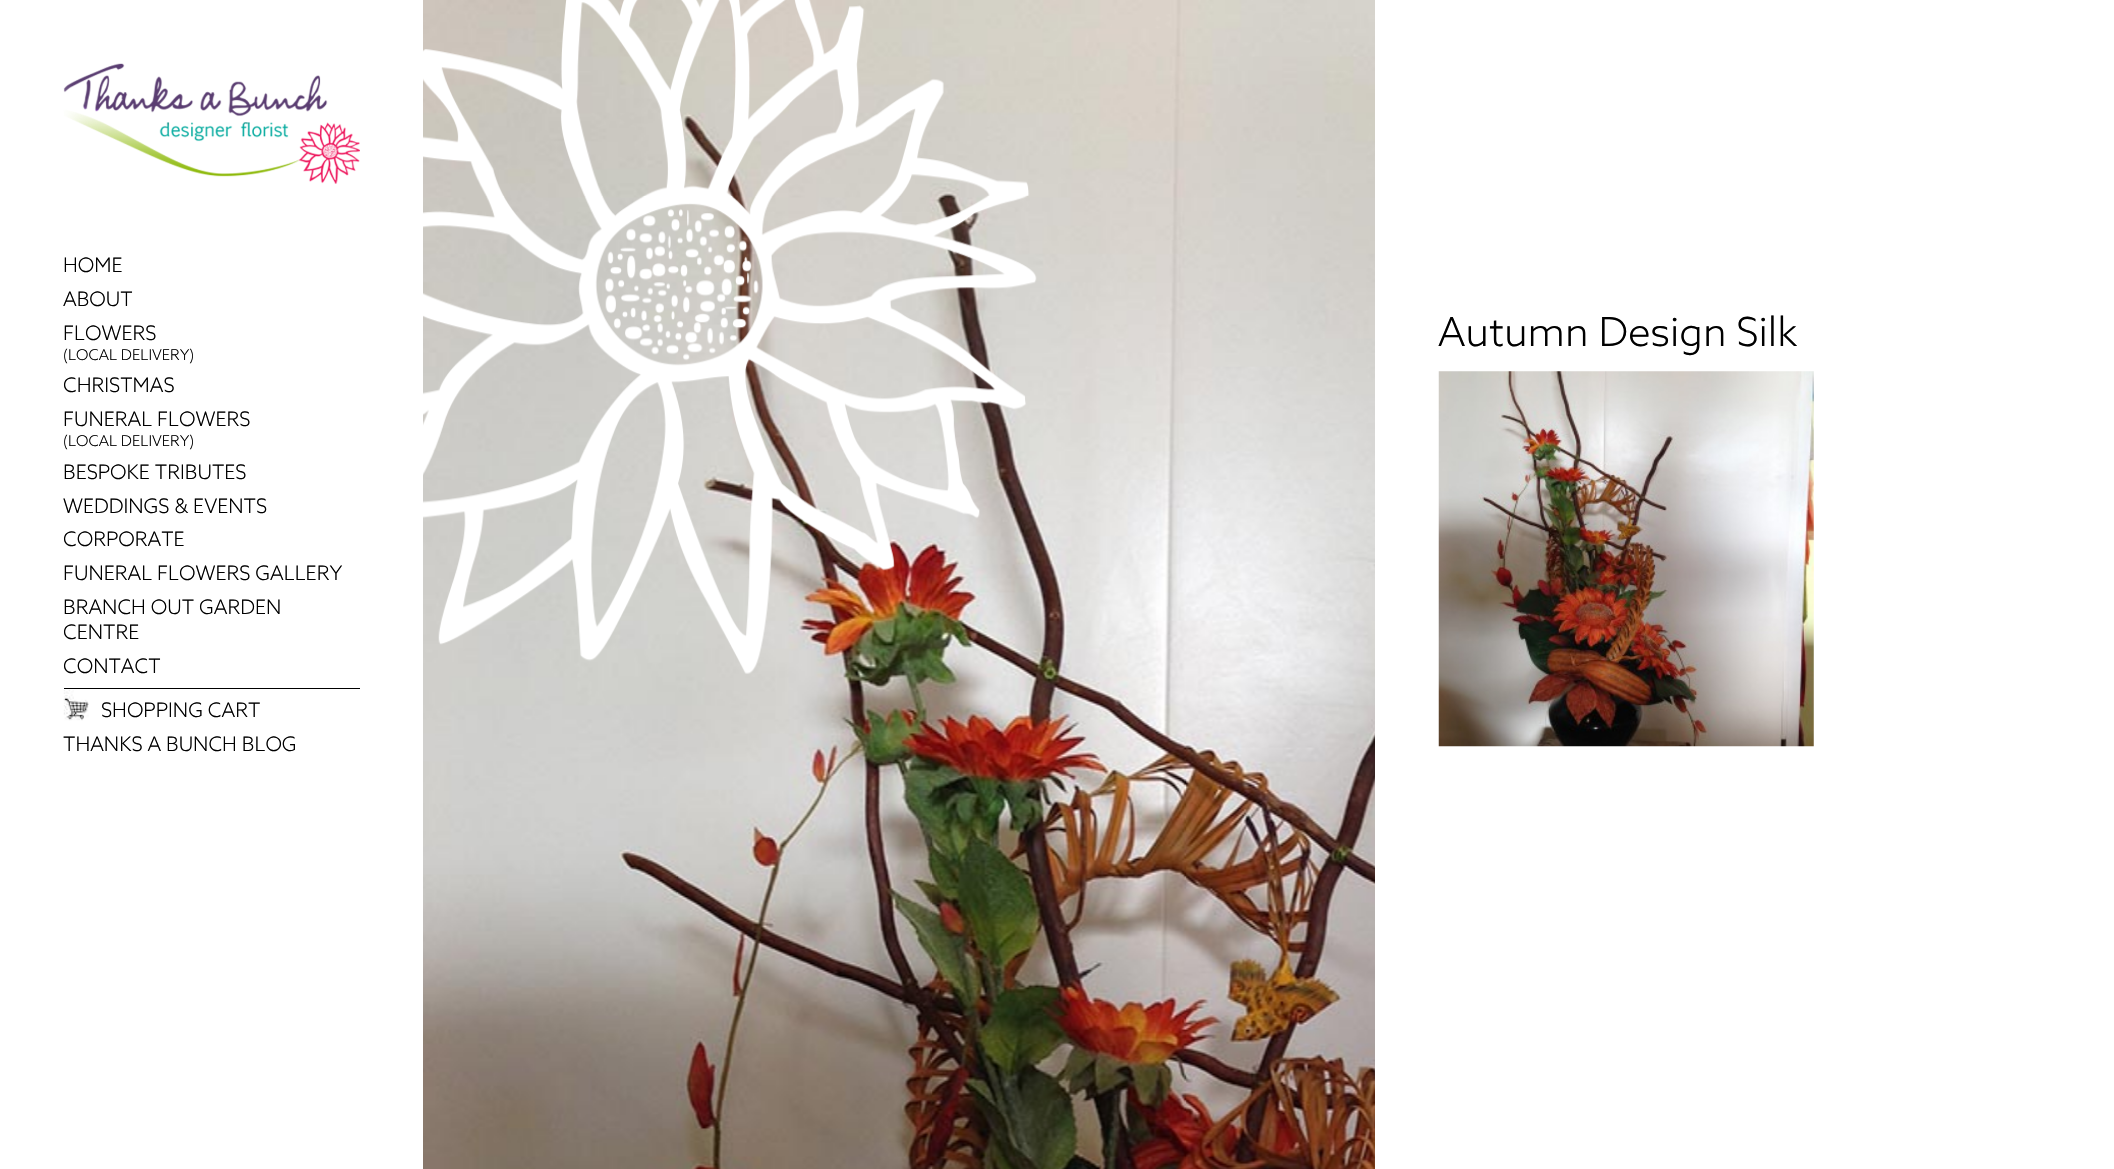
void draw(SkCanvas* c) {
SkPaint p;
p.setAntiAlias(true);
auto F=[&](const char* family, int weight, float size, bool italic = false){SkFontStyle style(weight, SkFontStyle::kNormal_Width,italic ? SkFontStyle::kItalic_Slant : SkFontStyle::kUpright_Slant);SkFont result(fontMgr->matchFamilyStyle(family, style), size);result.setSubpixel(true);return result;};
auto T=[&](const char* s, float x, float y, const SkFont& font){c->drawString(s, x, y, font, p);};
auto R=[&](float x, float y, float w, float h){c->drawRect(SkRect::MakeXYWH(x, y, w, h), p);};
auto I=[&](const char* path, float x, float y, float w, float h){auto image = SkImages::DeferredFromEncodedData(SkData::MakeFromFileName(path));c->drawImageRect(image, SkRect::MakeXYWH(x, y, w, h), SkSamplingOptions());};
c->clear(0xffffffff);
I("1.png",423,0,952,1169);
I("2.png",63,63,297,121);
auto f1 = F("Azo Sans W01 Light",300,20);
p.setColor(0xff000000);
T("HOME",63,272,f1);
T("ABOUT",63,306,f1);
T("FLOWERS",63,340,f1);
auto f2 = F("Azo Sans W01 Light",300,15);
T("(LOCAL DELIVERY)",63,360,f2);
T("CHRISTMAS",63,392,f1);
T("FUNERAL FLOWERS",63,426,f1);
T("(LOCAL DELIVERY)",63,446,f2);
T("BESPOKE TRIBUTES",63,479,f1);
T("WEDDINGS & EVENTS",63,513,f1);
T("CORPORATE",63,546,f1);
T("FUNERAL FLOWERS GALLERY",63,580,f1);
T("BRANCH OUT GARDEN",63,614,f1);
T("CENTRE",63,639,f1);
T("CONTACT",63,673,f1);
I("3.png",63,690,26,31);
R(64,688,296,1);
T("SHOPPING CART",101,717,f1);
T("THANKS A BUNCH BLOG",63,751,f1);
I("4.png",423,0,614,674);
auto f3 = F("Azo Sans W01 Light",300,40);
T("Autumn Design Silk",1438,346,f3);
I("5.png",1438,371,376,376);
}
